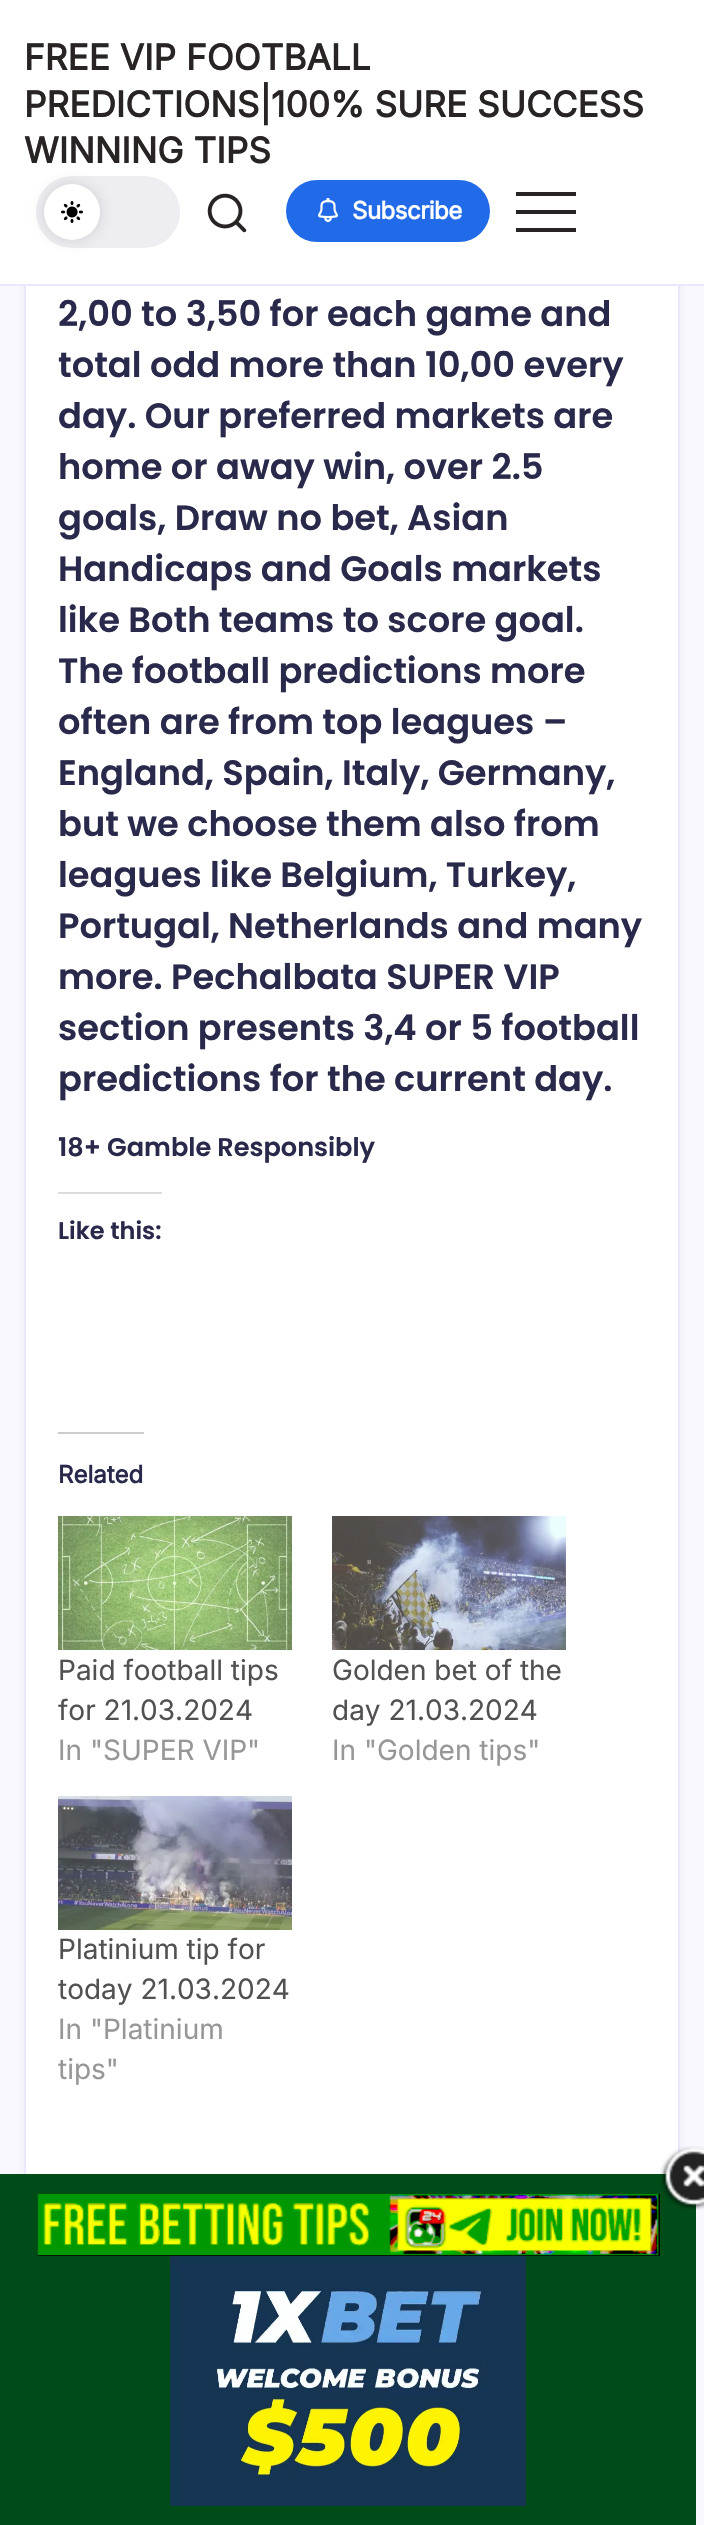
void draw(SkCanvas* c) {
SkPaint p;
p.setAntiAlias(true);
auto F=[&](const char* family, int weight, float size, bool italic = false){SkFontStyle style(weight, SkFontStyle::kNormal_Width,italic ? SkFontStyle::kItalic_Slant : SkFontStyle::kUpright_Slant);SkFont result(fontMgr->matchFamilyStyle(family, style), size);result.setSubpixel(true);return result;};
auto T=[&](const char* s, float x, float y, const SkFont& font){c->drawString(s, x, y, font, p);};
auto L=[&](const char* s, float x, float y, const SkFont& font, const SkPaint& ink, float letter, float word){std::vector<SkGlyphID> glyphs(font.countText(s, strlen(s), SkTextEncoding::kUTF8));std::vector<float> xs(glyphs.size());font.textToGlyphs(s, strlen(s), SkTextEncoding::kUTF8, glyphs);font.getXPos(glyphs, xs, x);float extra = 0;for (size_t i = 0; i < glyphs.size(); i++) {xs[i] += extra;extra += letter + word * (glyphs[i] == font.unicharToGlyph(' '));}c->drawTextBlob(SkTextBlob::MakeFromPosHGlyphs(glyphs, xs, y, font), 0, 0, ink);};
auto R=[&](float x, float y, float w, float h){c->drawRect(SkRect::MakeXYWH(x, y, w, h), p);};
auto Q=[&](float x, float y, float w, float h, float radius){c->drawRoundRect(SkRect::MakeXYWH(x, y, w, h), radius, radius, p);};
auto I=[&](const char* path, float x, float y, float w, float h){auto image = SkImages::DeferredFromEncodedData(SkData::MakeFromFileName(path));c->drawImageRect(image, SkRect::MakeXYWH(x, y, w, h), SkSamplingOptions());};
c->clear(0xfffaf8ff);
p.setColor(0x0d0e0e13);
p.setMaskFilter(SkMaskFilter::MakeBlur(kNormal_SkBlurStyle, 5));
c->drawRoundRect(SkRect::MakeXYWH(24,-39,656,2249),24,24,p);
p.setMaskFilter(nullptr);
p.setColor(0xffffffff);
R(26,286,652,1888);
p.setStroke(true);
p.setStrokeWidth(2);
p.setColor(0xffe9e8ff);
c->drawRect(SkRect::MakeXYWH(25,-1,654,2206),p);
p.setStroke(false);
p.setColor(0xffffffff);
R(0,0,704,284);
p.setColor(0xffe9e8ff);
R(0,284,704,2);
auto f1 = F("Inter",700,35.25);
p.setColor(0xff282424);
T("FREE VIP FOOTBALL",24,70,f1);
T("PREDICTIONS|100% SURE SUCCESS",24,117,f1);
T("WINNING TIPS",24,163,f1);
p.setColor(0xffeeeef2);
Q(36,176,144,72,36);
p.setColor(0x2e2f3139);
p.setMaskFilter(SkMaskFilter::MakeBlur(kNormal_SkBlurStyle, 8));
c->drawRoundRect(SkRect::MakeXYWH(44,184,56,56),28,28,p);
p.setMaskFilter(nullptr);
p.setColor(0xffffffff);
c->drawCircle(72,212,28,p);
I("1.png",61,201,22,22);
I("2.png",207,193,40,40);
p.setColor(0xff216be9);
Q(286,180,204,62,31);
I("3.png",318,198,20,24);
auto f2 = F("Inter",700,24);
p.setColor(0xffffffff);
L("Subscribe",352,219,f2,p,-.5,0);
p.setColor(0xff282424);
R(516,192,60,4);
R(516,210,60,4);
R(516,228,60,4);
auto f3 = F("Poppins",600,35.25);
p.setColor(0xff29294b);
T("2,00 to 3,50 for each game and",58,326,f3);
T("total odd more than 10,00 every",58,377,f3);
T("day. Our preferred markets are",58,428,f3);
T("home or away win, over 2.5",58,479,f3);
T("goals, Draw no bet, Asian",58,530,f3);
T("Handicaps and Goals markets",58,581,f3);
T("like Both teams to score goal.",58,632,f3);
T("The football predictions more",58,683,f3);
T("often are from top leagues –",58,734,f3);
T("England, Spain, Italy, Germany,",58,785,f3);
T("but we choose them also from",58,836,f3);
T("leagues like Belgium, Turkey,",58,887,f3);
T("Portugal, Netherlands and many",58,938,f3);
T("more. Pechalbata SUPER VIP",58,989,f3);
T("section presents 3,4 or 5 football",58,1040,f3);
T("predictions for the current day.",58,1091,f3);
auto f4 = F("Poppins",600,25.6);
T("18+ Gamble Responsibly",58,1156,f4);
p.setColor(0xffdcdcde);
R(58,1192,104,2);
auto f5 = F("Poppins",600,24);
p.setColor(0xff29294b);
T("Like this:",58,1239,f5);
p.setColor(0xffcccccc);
R(58,1432,86,2);
p.setColor(0xff29294b);
T("Related",58,1483,f2);
I("4.png",58,1516,234,134);
auto f6 = F("Inter",400,28);
p.setColor(0xff535050);
T("Paid football tips",58,1680,f6);
T("for 21.03.2024",58,1720,f6);
p.setColor(0xff989696);
T("In \"SUPER VIP\"",58,1760,f6);
I("5.png",332,1516,234,134);
p.setColor(0xff535050);
T("Golden bet of the",332,1680,f6);
T("day 21.03.2024",332,1720,f6);
p.setColor(0xff989696);
T("In \"Golden tips\"",332,1760,f6);
I("6.png",58,1796,234,134);
p.setColor(0xff535050);
T("Platinium tip for",58,1959,f6);
T("today 21.03.2024",58,1999,f6);
p.setColor(0xff989696);
T("In \"Platinium",58,2039,f6);
T("tips\"",58,2079,f6);
p.setColor(0xff004c18);
R(0,2174,696,351);
I("7.png",660,2146,44,64);
I("8.png",37,2194,623,62);
I("9.png",170,2256,356,250);
}
